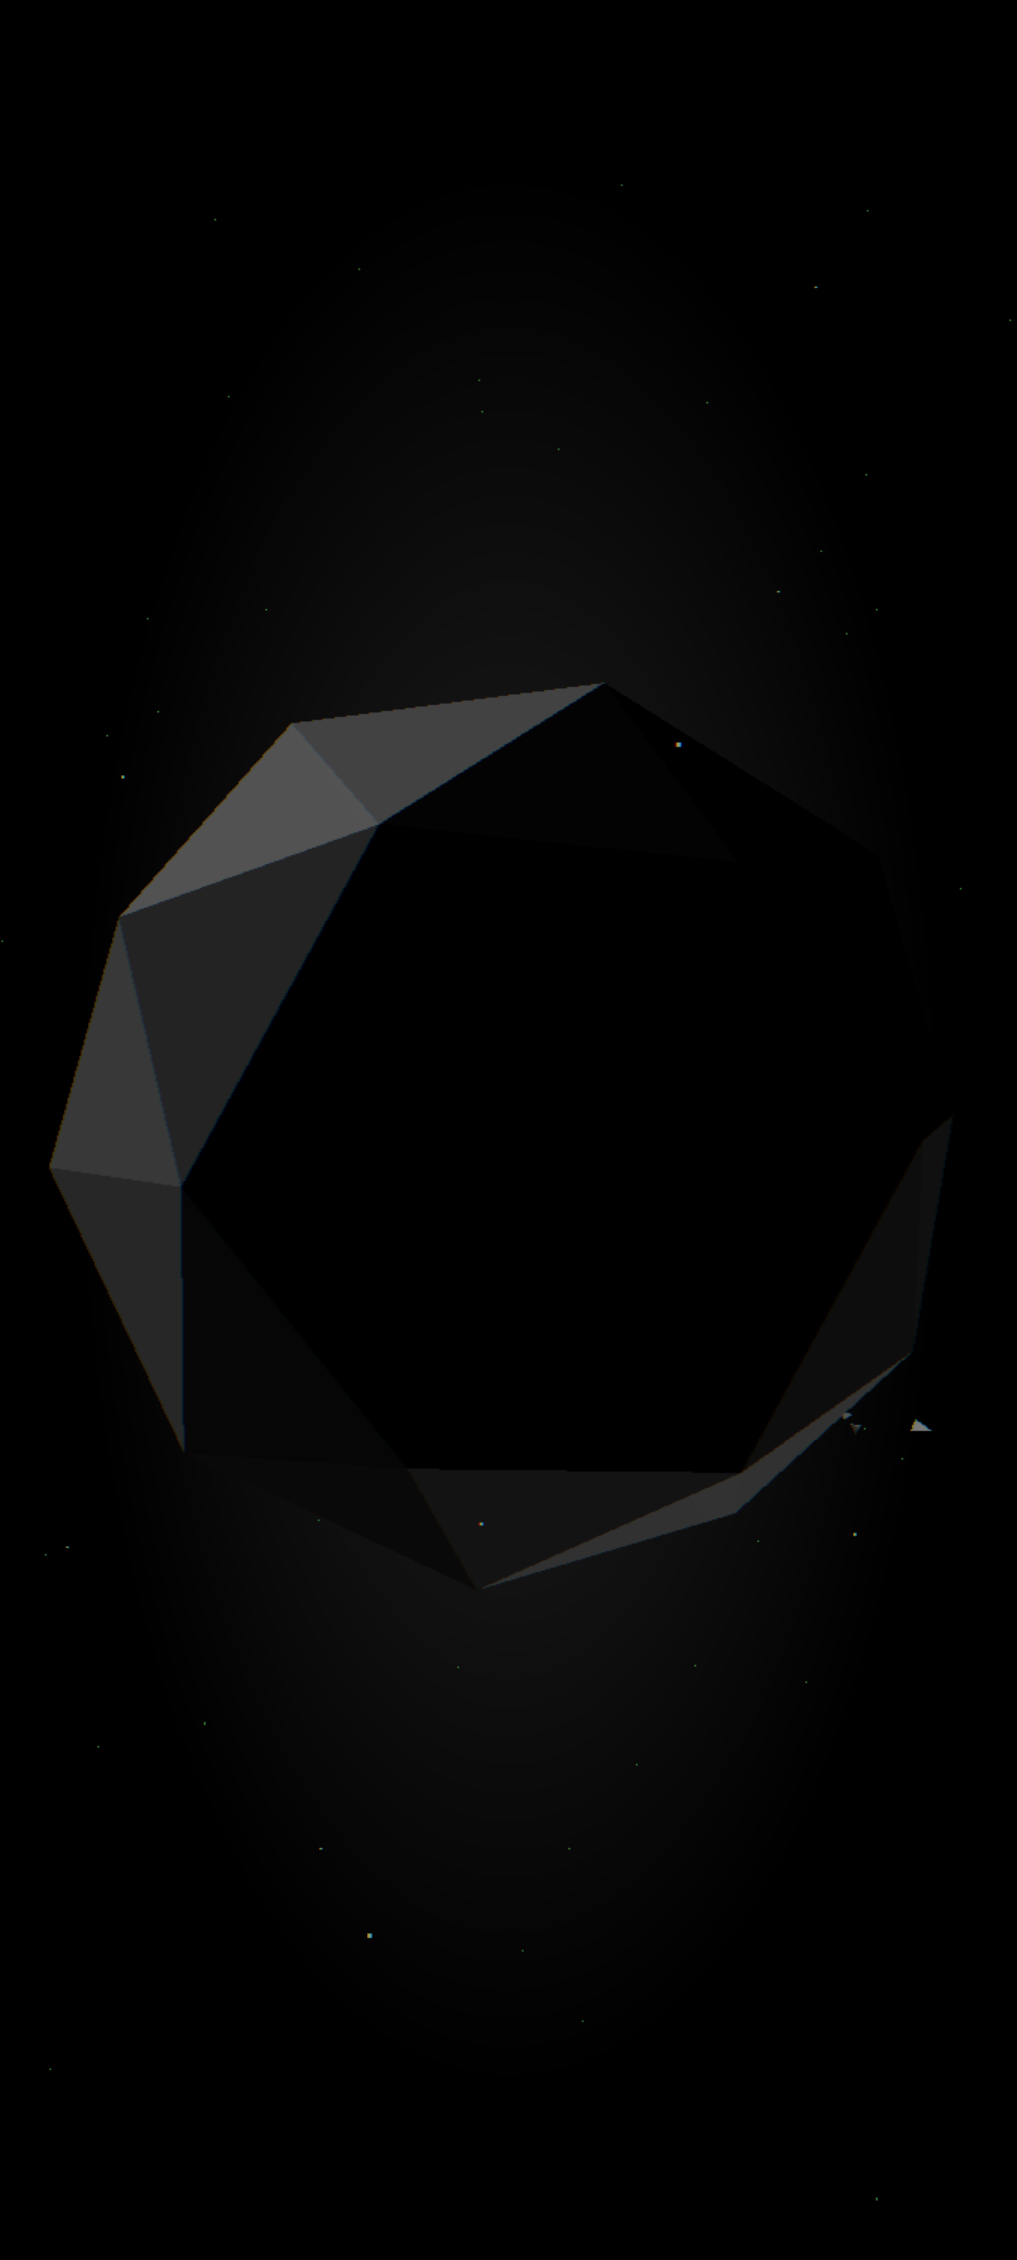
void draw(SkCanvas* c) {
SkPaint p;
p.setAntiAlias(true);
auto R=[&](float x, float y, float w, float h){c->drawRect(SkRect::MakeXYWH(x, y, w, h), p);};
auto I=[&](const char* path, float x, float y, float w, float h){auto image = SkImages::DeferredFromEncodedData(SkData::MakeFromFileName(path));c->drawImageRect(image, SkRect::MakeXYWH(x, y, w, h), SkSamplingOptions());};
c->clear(0xffffffff);
{
const SkColor colors[] = {0xff222222,0xff000000};
const float stops[] = {0,.6};
SkMatrix m = SkMatrix::Translate(509,1130).preScale(719,1598);
p.setShader(SkGradientShader::MakeRadial({0, 0}, 1, colors, stops, 2, SkTileMode::kClamp, 0, &m));
p.setAlpha(255);
}
R(0,0,1017,2260);
I("1.png",1,184,1011,2017);
}
